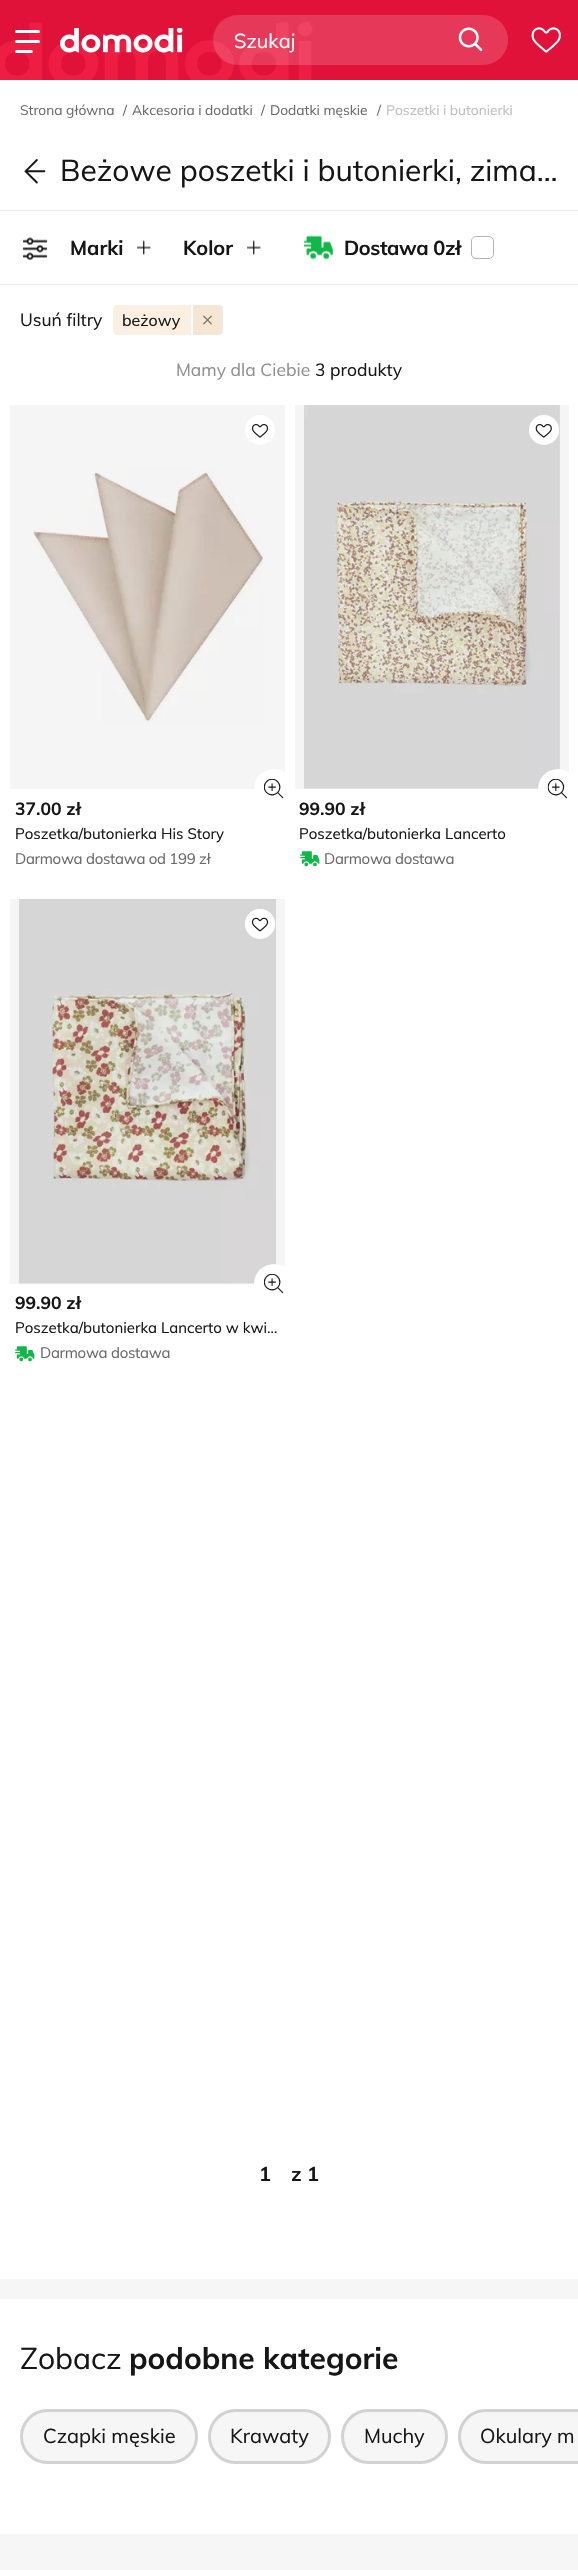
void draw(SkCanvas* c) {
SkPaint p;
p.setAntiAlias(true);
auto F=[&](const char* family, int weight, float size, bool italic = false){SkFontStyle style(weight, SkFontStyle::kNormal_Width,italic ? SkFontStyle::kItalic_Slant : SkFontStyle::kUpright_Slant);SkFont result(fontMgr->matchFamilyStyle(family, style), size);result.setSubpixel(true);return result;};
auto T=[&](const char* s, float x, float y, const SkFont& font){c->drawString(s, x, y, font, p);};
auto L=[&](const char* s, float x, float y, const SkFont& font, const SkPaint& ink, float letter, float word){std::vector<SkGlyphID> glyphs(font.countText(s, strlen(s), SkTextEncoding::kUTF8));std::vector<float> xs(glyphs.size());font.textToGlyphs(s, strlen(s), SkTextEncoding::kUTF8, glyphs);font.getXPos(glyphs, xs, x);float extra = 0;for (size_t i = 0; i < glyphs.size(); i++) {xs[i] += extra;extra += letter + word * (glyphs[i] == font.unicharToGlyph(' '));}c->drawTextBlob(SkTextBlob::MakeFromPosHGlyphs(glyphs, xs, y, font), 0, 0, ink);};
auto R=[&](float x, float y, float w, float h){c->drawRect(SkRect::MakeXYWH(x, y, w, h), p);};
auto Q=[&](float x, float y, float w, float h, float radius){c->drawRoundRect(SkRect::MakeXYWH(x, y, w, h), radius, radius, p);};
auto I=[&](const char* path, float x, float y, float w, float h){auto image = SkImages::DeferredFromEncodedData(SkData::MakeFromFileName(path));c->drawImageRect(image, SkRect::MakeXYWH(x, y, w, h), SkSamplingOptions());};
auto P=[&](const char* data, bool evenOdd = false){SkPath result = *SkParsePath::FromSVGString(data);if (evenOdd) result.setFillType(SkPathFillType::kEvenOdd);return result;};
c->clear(0xffffffff);
p.setColor(0xfff5f5f5);
R(10,899,275,385);
R(295,405,274,384);
R(10,405,275,384);
p.setColor(0xffe11239);
R(0,0,578,80);
I("1.png",0,22,313,58);
p.setColor(0xffffffff);
Q(15,40,25,3,1.5);
Q(15,30,25,3,1.5);
Q(15,50,18,3,1.5);
I("2.png",60,28,123,25);
p.setColor(0x29ffffff);
Q(213,15,295,50,25);
auto f1 = F("Mulish",400,20);
p.setColor(0xffffffff);
T("Szukaj",234,48,f1);
I("3.png",458,27,25,24);
I("4.png",531,27,30,26);
auto f2 = F("Mulish",400,13.75);
p.setColor(0xff6a6a6a);
T("Strona główna",20,115,f2);
T("/",123,115,f2);
T("Akcesoria i dodatki",132,115,f2);
T("/",261,115,f2);
T("Dodatki męskie",270,115,f2);
T("/",377,115,f2);
p.setColor(0xffbebebe);
T("Poszetki i butonierki",386,115,f2);
I("5.png",24,159,22,25);
auto f3 = F("Mulish",400,30);
p.setColor(0xff161616);
T("Beżowe poszetki i butonierki, zima…",60,181,f3);
p.setColor(0xffececec);
R(0,210,578,1);
R(0,284,578,1);
I("6.png",22,237,26,24);
auto f4 = F("Mulish",700,20);
p.setColor(0xff161616);
T("Marki",70,255,f4);
I("7.png",137,240,14,15);
T("Kolor",183,255,f4);
I("7.png",247,240,14,15);
I("8.png",304,235,29,25);
L("Dostawa 0zł",344,255,f4,p,-.4,0);
p.setStroke(true);
p.setStrokeWidth(1);
p.setColor(0xffb4b4b4);
c->drawRoundRect(SkRect::MakeXYWH(471.5,236.5,22,22),4.5,4.5,p);
auto f5 = F("Mulish",400,17.5);
p.setStroke(false);
p.setColor(0xff161616);
T("Usuń filtry",20,326,f5);
p.setColor(0xfffaefe0);
c->drawPath(P("M118 305h73v30h-73c-3 0-5-2-5-5v-20c0-3 2-5 5-5z"),p);
auto f6 = F("Mulish",400,16);
p.setColor(0xff161616);
T("beżowy",122,326,f6);
p.setColor(0xfff5e7d3);
c->drawPath(P("M193 305h25c3 0 5 2 5 5v20c0 3-2 5-5 5h-25z"),p);
I("9.png",203,315,9,10);
p.setColor(0xff8f8f8f);
T("Mamy dla Ciebie",176,376,f5);
p.setColor(0xff161616);
T("3 produkty",315,376,f5);
p.setColor(0xffffffff);
c->drawCircle(260,430,15,p);
I("10.png",251,424,18,14);
I("11.png",33,470,230,252);
auto f7 = F("Mulish",700,17.5);
p.setColor(0xff161616);
T("37.00 zł",15,815,f7);
p.setColor(0xffffffff);
c->drawCircle(274,789,20,p);
I("12.png",264,779,20,20);
auto f8 = F("Mulish",400,15);
p.setColor(0xff161616);
T("Poszetka/butonierka His Story",15,839,f8);
p.setColor(0xff6a6a6a);
L("Darmowa dostawa od 199 zł",15,864,f8,p,-.3,0);
I("14.png",304,405,256,384);
p.setColor(0xffffffff);
c->drawCircle(544,430,15,p);
p.setColor(0x80ffffff);
c->drawCircle(544,430,15,p);
I("13.png",535,424,17,14);
p.setColor(0xff161616);
T("99.90 zł",299,815,f7);
p.setColor(0xffffffff);
c->drawCircle(558,789,20,p);
I("15.png",547,779,21,20);
p.setColor(0xff161616);
T("Poszetka/butonierka Lancerto",299,839,f8);
I("16.png",300,851,20,16);
p.setColor(0xff6a6a6a);
L("Darmowa dostawa",324,864,f8,p,-.3,0);
I("18.png",19,899,257,385);
p.setColor(0xffffffff);
c->drawCircle(260,924,15,p);
p.setColor(0x80ffffff);
c->drawCircle(260,924,15,p);
I("17.png",251,917,18,15);
p.setColor(0xff161616);
T("99.90 zł",15,1309,f7);
p.setColor(0xffffffff);
c->drawCircle(274,1284,20,p);
I("12.png",264,1274,20,20);
p.setColor(0xff161616);
T("Poszetka/butonierka Lancerto w kwi…",15,1333,f8);
I("16.png",15,1346,20,16);
p.setColor(0xff6a6a6a);
L("Darmowa dostawa",40,1358,f8,p,-.3,0);
p.setColor(0xff161616);
T("1",259,2181,f4);
T("z 1",291,2181,f4);
p.setColor(0xfff6f6f6);
R(0,2279,578,20);
p.setColor(0xff161616);
T("Zobacz",20,2369,f3);
auto f9 = F("Mulish",700,30);
T("podobne kategorie",129,2369,f9);
p.setColor(0xfff6f6f6);
Q(20,2409,178,55,27.5);
p.setStroke(true);
p.setStrokeWidth(3);
p.setColor(0x29161616);
c->drawRoundRect(SkRect::MakeXYWH(21.5,2410.5,175,52),26,26,p);
p.setStroke(false);
p.setColor(0xff161616);
T("Czapki męskie",43,2443,f1);
p.setColor(0xfff6f6f6);
Q(208,2409,123,55,27.5);
p.setStroke(true);
p.setColor(0x29161616);
c->drawRoundRect(SkRect::MakeXYWH(209.5,2410.5,120,52),26,26,p);
p.setStroke(false);
p.setColor(0xff161616);
T("Krawaty",230,2443,f1);
p.setColor(0xfff6f6f6);
Q(341,2409,107,55,27.5);
p.setStroke(true);
p.setColor(0x29161616);
c->drawRoundRect(SkRect::MakeXYWH(342.5,2410.5,104,52),26,26,p);
p.setStroke(false);
p.setColor(0xff161616);
T("Muchy",364,2443,f1);
p.setColor(0xfff6f6f6);
c->drawPath(P("M485.5 2409h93.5v55h-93.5c-15 0-27.5-12.5-27.5-27.5c0-15 12.5-27.5 27.5-27.5z"),p);
p.setStroke(true);
p.setColor(0x29161616);
c->drawRoundRect(SkRect::MakeXYWH(459.5,2410.5,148,52),26,26,p);
p.setStroke(false);
p.setColor(0xff161616);
T("Okulary m",480,2443,f1);
p.setColor(0xfff6f6f6);
R(0,2534,578,36);
}
